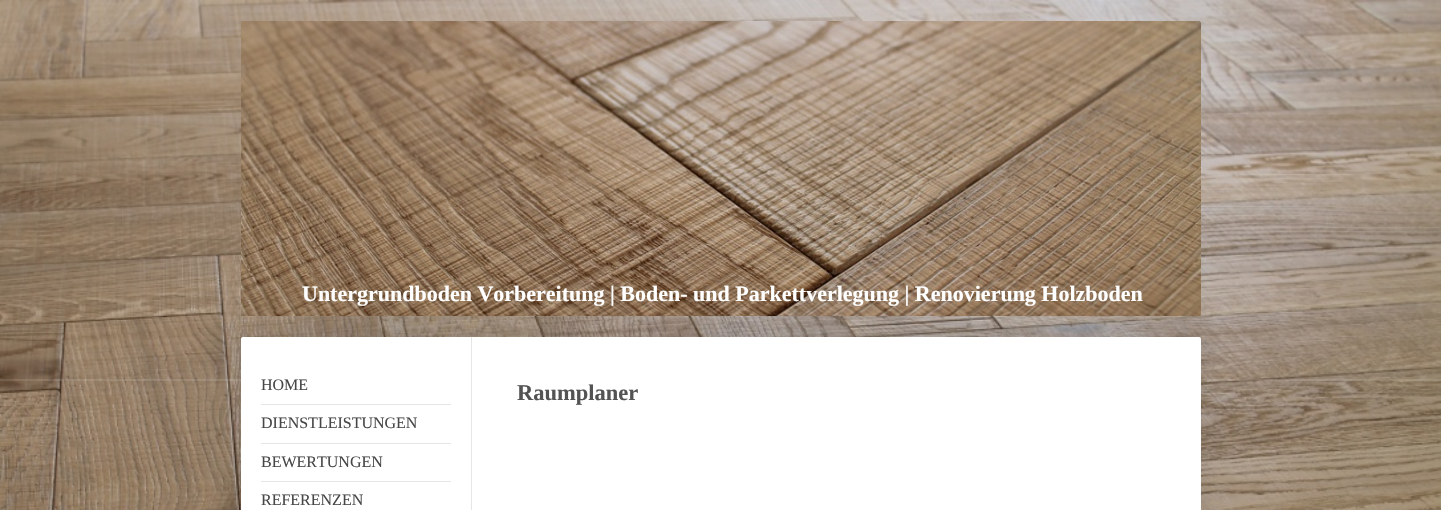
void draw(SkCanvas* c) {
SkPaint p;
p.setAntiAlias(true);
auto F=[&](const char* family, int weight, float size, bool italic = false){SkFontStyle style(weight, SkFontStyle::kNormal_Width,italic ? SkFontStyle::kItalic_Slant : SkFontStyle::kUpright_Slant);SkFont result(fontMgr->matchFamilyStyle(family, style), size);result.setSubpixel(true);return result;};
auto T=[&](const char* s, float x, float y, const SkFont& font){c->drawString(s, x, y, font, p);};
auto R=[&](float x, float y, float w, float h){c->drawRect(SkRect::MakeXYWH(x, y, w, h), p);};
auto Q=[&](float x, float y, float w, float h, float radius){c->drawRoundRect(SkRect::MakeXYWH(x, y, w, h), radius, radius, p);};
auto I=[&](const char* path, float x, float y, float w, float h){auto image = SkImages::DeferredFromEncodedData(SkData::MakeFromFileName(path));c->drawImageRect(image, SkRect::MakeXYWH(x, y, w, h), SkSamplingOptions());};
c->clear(0xffffffff);
I("1.png",0,0,1441,510);
c->save();
c->clipRect(SkRect::MakeXYWH(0,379,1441,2));
p.setColor(0x1affffff);
p.setMaskFilter(SkMaskFilter::MakeBlur(kNormal_SkBlurStyle, .5));
c->drawRect(SkRect::MakeXYWH(0,2,1441,379),p);
p.setMaskFilter(nullptr);
c->restore();
I("2.png",241,21,960,295);
p.setColor(0x1a000000);
p.setMaskFilter(SkMaskFilter::MakeBlur(kNormal_SkBlurStyle, 15));
c->drawRoundRect(SkRect::MakeXYWH(241,327,960,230),2,2,p);
p.setMaskFilter(nullptr);
I("3.png",241,21,960,295);
p.setColor(0xffbeb7ae);
R(1200,21,1,1);
auto f1 = F("Liberation Serif",700,22);
p.setColor(0xffffffff);
T("Untergrundboden Vorbereitung | Boden- und Parkettverlegung | Renovierung Holzboden",302,301,f1);
Q(241,337,960,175,2);
p.setColor(0xffe6e6e6);
R(261,404,190,1);
auto f2 = F("Liberation Serif",400,16);
p.setColor(0xff474747);
T("HOME",261,390,f2);
p.setColor(0xffe6e6e6);
R(261,443,190,1);
p.setColor(0xff474747);
T("DIENSTLEISTUNGEN",261,428,f2);
p.setColor(0xffe6e6e6);
R(261,481,190,1);
p.setColor(0xff474747);
T("BEWERTUNGEN",261,467,f2);
T("REFERENZEN",261,505,f2);
p.setColor(0xffe6e6e6);
R(471,337,1,173);
auto f3 = F("Liberation Serif",700,22.5);
p.setColor(0xff535353);
T("Raumplaner",517,400,f3);
}
